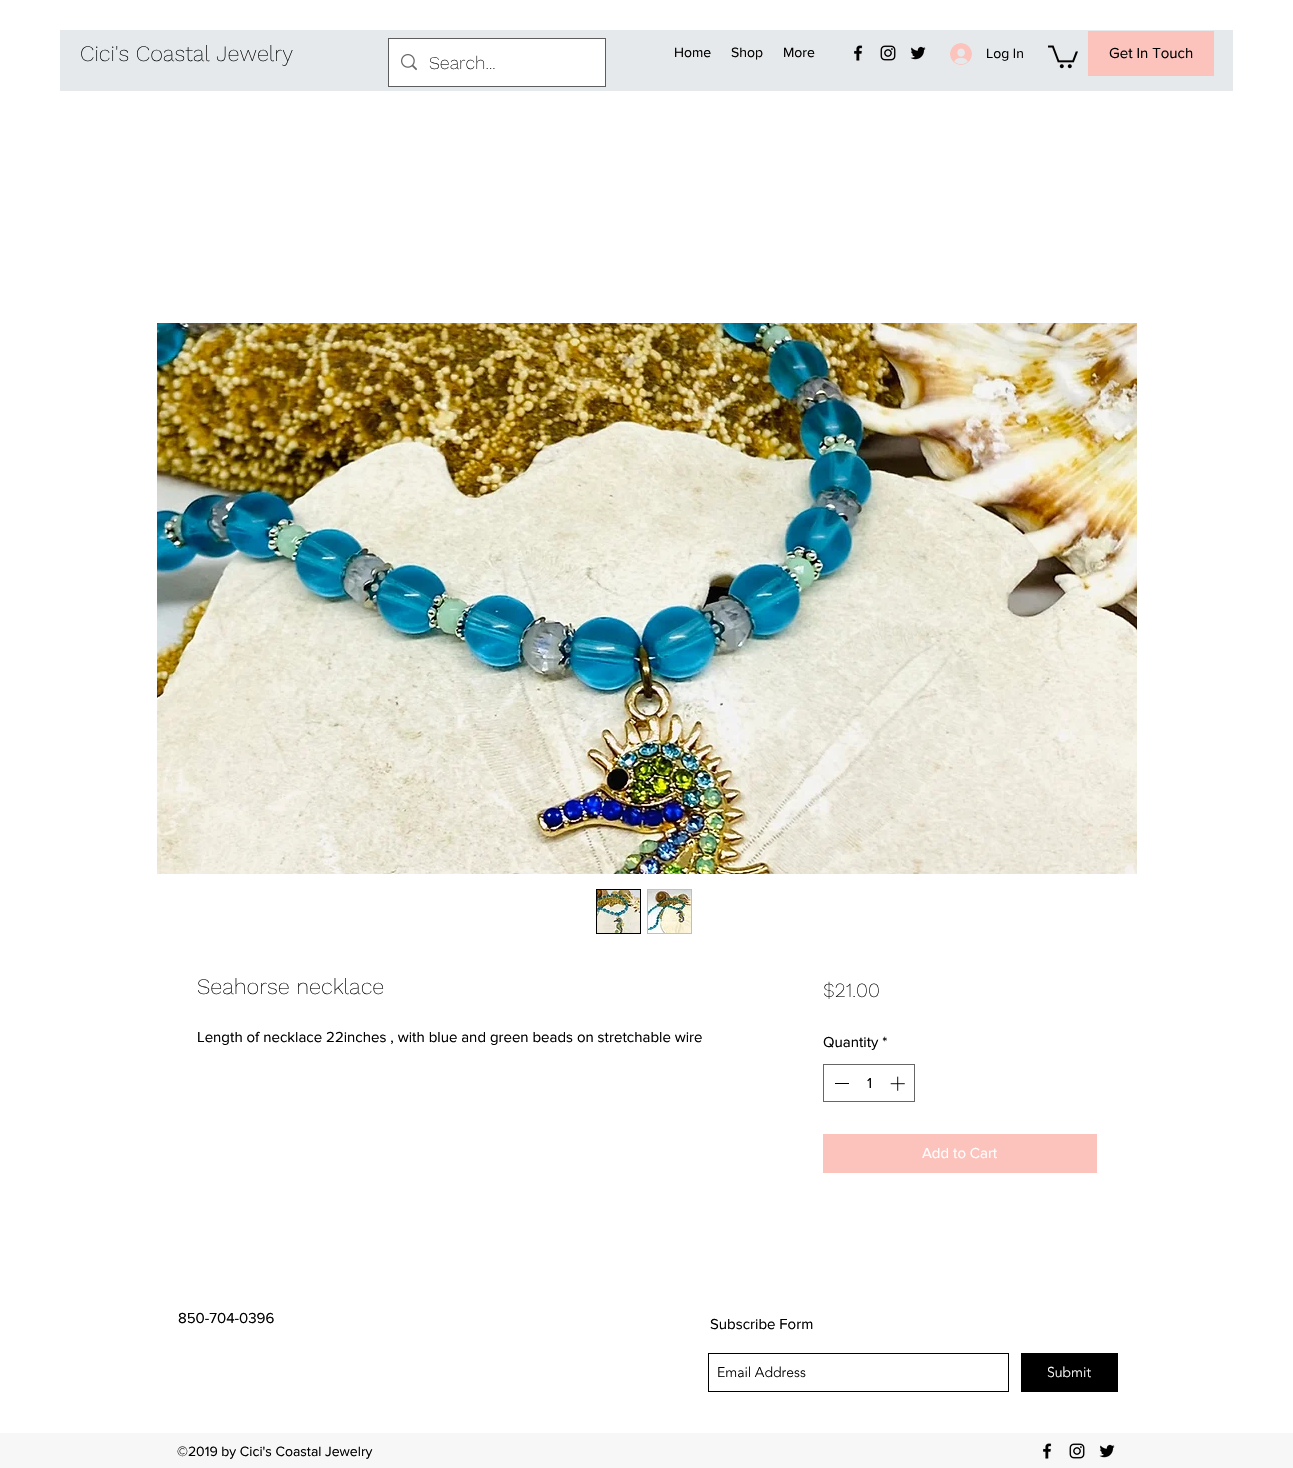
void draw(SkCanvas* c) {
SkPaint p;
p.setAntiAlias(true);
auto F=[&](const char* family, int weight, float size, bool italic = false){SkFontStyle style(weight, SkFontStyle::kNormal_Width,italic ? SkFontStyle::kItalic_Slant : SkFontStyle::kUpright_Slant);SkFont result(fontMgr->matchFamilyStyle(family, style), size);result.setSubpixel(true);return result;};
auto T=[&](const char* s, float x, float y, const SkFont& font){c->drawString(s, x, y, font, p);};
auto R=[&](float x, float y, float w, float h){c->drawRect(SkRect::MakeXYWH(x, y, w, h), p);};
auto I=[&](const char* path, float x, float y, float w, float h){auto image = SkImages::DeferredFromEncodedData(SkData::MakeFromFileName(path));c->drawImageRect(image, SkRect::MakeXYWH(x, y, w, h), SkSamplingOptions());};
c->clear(0xffffffff);
p.setColor(0xffe6e9eb);
R(60,30,1173,61);
auto f1 = F("Work Sans",200,22);
p.setColor(0xff000000);
T("Cici's Coastal Jewelry",80,61,f1);
p.setStroke(true);
p.setStrokeWidth(1);
p.setColor(0xff5c5d5e);
c->drawRect(SkRect::MakeXYWH(388.5,38.5,217,48),p);
p.setStroke(false);
p.setColor(0xffffffff);
R(389,39,216,47);
I("1.png",401,54,16,17);
auto f2 = F("Work Sans",200,18);
p.setColor(0xff000000);
T("Search...",429,69,f2);
auto f3 = F("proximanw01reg",400,14);
T("Home",674,57,f3);
T("Shop",731,57,f3);
T("More",783,57,f3);
I("2.png",854,45,9,16);
I("3.png",880,45,16,16);
I("4.png",910,46,16,14);
I("5.png",950,43,22,22);
T("Log In",986,58,f3);
I("6.png",1048,45,30,24);
p.setColor(0xfffbc3bc);
R(1088,31,126,45);
auto f4 = F("proximanw01reg",400,15);
p.setColor(0xff000000);
T("Get In Touch",1109,58,f4);
I("7.png",157,323,980,551);
p.setStroke(true);
c->drawRect(SkRect::MakeXYWH(596.5,889.5,44,44),p);
I("8.png",597,890,43,43);
p.setStroke(false);
p.setColor(0xffbfbfbf);
R(647,889,45,45);
I("9.png",648,890,43,43);
p.setColor(0xff000000);
T("Seahorse necklace",197,994,f1);
T("Length of necklace 22inches , with blue and green beads on stretchable wire",197,1042,f4);
auto f5 = F("Work Sans",200,20);
T("$21.00",823,997,f5);
T("Quantity *",823,1047,f4);
p.setStroke(true);
p.setColor(0xff666666);
c->drawRect(SkRect::MakeXYWH(823.5,1064.5,91,37),p);
p.setStroke(false);
p.setColor(0xff000000);
R(835,1083,14,1);
T("1",867,1088,f4);
I("10.png",890,1076,15,15);
p.setColor(0xfffbc3bc);
R(823,1134,274,39);
p.setColor(0xffffffff);
T("Add to Cart",922,1158,f4);
p.setColor(0xff000000);
T("850-704-0396",178,1323,f4);
T("Subscribe Form",710,1329,f4);
p.setStroke(true);
c->drawRect(SkRect::MakeXYWH(708.5,1353.5,300,38),p);
auto f6 = F("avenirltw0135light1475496",300,14);
p.setStroke(false);
T("Email Address",717,1377,f6);
R(1021,1353,97,39);
p.setColor(0xffffffff);
T("Submit",1047,1377,f6);
p.setColor(0xfff7f7f7);
R(0,1433,1293,35);
p.setColor(0xff000000);
T("©2019 by Cici's Coastal Jewelry",177,1456,f3);
I("11.png",1043,1443,9,16);
I("12.png",1069,1443,16,16);
I("13.png",1099,1444,16,14);
}
